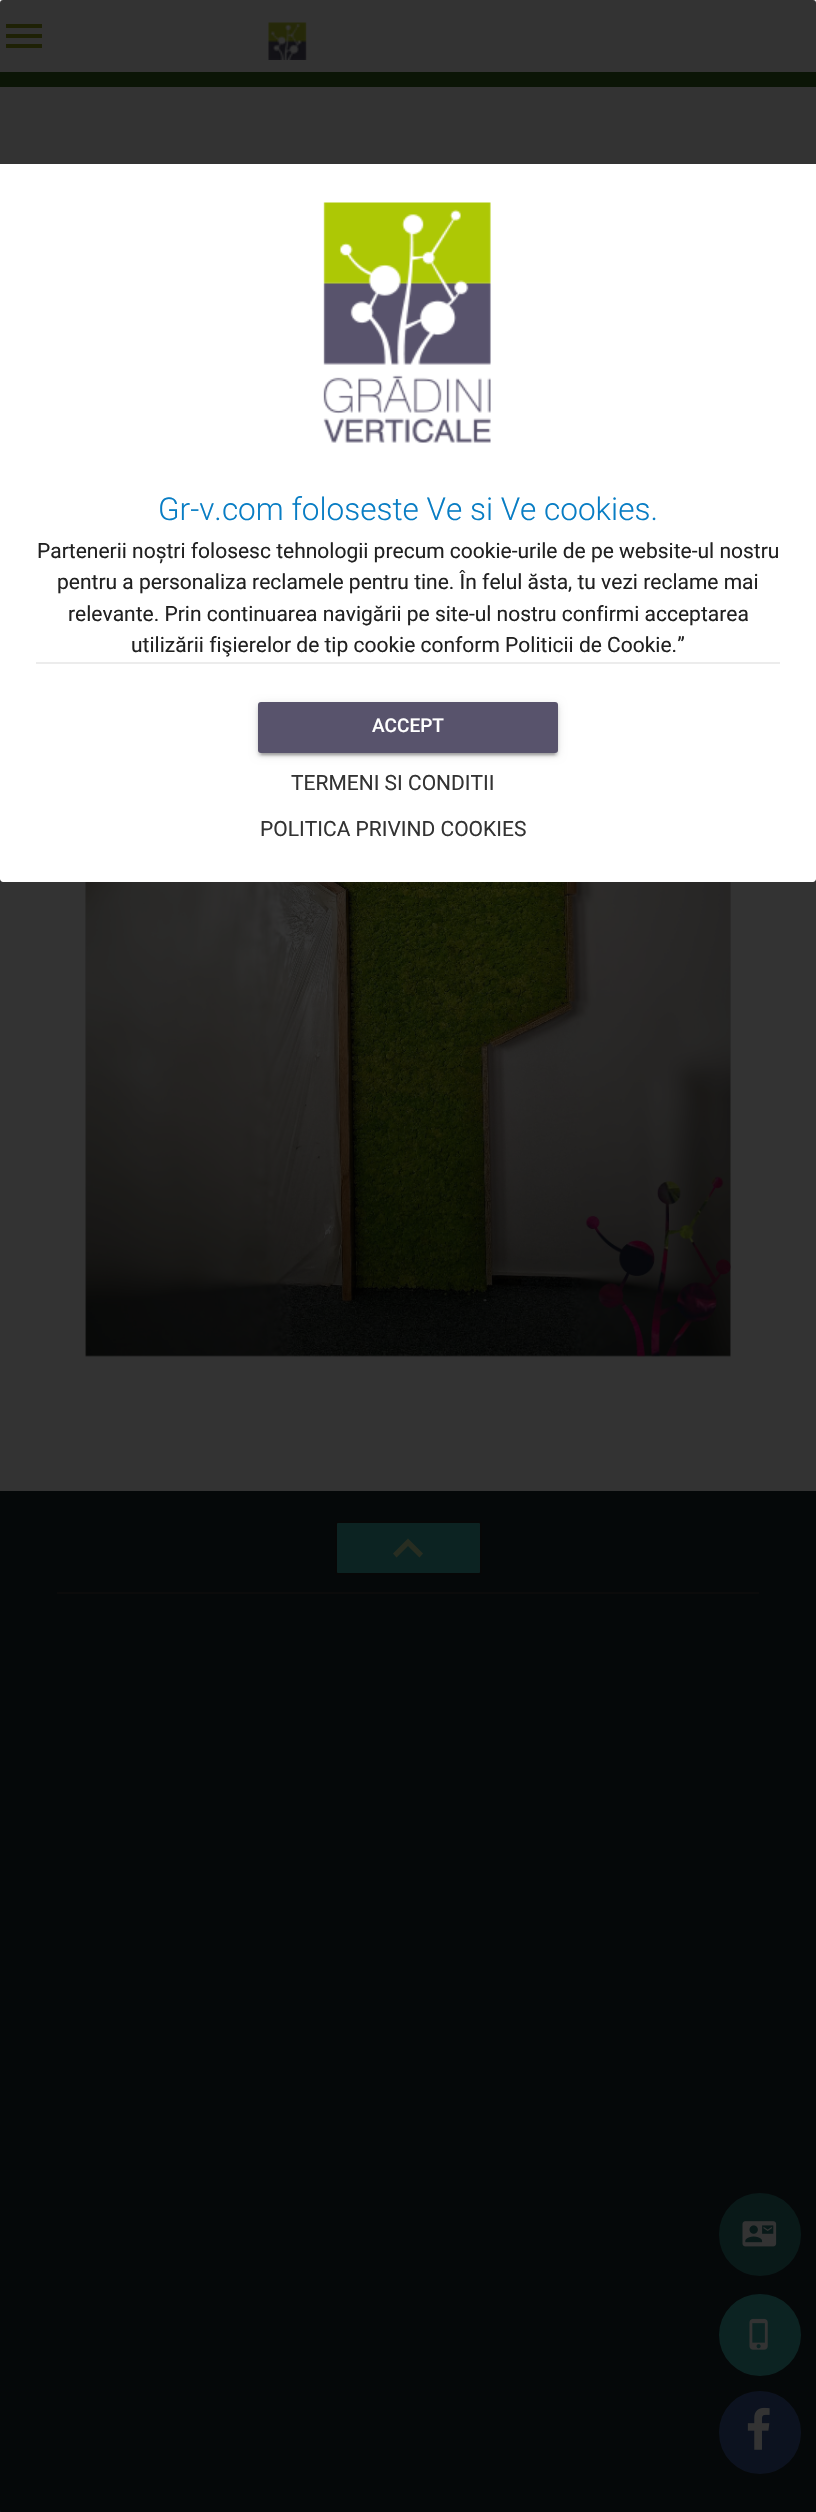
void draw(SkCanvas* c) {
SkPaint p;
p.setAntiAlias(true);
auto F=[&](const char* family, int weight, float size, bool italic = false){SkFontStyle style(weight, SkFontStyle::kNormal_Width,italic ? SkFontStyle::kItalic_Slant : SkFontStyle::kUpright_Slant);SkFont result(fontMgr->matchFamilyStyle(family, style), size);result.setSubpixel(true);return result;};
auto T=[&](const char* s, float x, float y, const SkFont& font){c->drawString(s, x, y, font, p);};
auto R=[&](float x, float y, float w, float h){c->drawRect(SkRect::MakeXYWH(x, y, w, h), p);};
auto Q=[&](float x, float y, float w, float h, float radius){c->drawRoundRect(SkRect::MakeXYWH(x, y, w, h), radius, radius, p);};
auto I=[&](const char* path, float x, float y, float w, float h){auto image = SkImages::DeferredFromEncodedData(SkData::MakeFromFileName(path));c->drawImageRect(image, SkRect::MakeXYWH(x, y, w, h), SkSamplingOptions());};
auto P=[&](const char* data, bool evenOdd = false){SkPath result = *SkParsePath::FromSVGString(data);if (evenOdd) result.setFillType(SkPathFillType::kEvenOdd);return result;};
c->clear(0xff17252a);
p.setColor(0xffffffff);
R(0,0,816,164);
p.setColor(0xff33691e);
R(0,72,816,15);
p.setColor(0xff95a218);
c->drawPath(P("M6 48h36v-4h-36zm0-10h36v-4h-36zm0-14v4h36v-4z"),p);
I("1.png",268,22,39,38);
p.setColor(0xffffffff);
R(0,879,816,612);
I("3.png",85,882,646,475);
p.setColor(0xff3aafa9);
c->drawRoundRect(SkRect::MakeXYWH(336,1522,145,52),2,2,p);
p.setStroke(true);
p.setStrokeWidth(2);
p.setColor(0xff212121);
c->drawRoundRect(SkRect::MakeXYWH(336,1522,145,52),2,2,p);
p.setStroke(false);
p.setColor(0xffc5e1a5);
c->drawPath(P("M396.5 1557.5l11.5-11.5l11.5 11.5l3.5-4l-15-15l-15 15z"),p);
p.setColor(0xff343434);
R(57,1592,702,2);
p.setColor(0xff2b7a77);
Q(719,2193,82,83,41);
I("4.png",742,2221,35,26);
p.setColor(0xff3aafa9);
c->drawCircle(760,2335,41,p);
I("5.png",749,2318,19,32);
p.setColor(0xff3b5998);
Q(719,2391,82,83,41);
I("6.png",747,2407,23,43);
p.setColor(0xcc000000);
Q(0,0,816,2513,3);
p.setColor(0xffffffff);
c->drawPath(P("M0 164h816v715c0 1.5-1.5 3-3 3h-810c-1.5 0-3-1.5-3-3z"),p);
I("2.png",323,202,168,241);
auto f1 = F("Roboto",300,31.5);
p.setColor(0xff087dc4);
T("Gr-v.com foloseste Ve si Ve cookies.",158,520,f1);
auto f2 = F("Roboto",400,21);
p.setColor(0xff212121);
T("Partenerii noștri folosesc tehnologii precum cookie-urile de pe website-ul nostru",37,558,f2);
T("pentru a personaliza reclamele pentru tine. În felul ăsta, tu vezi reclame mai",57,589,f2);
T("relevante. Prin continuarea navigării pe site-ul nostru confirmi acceptarea",68,621,f2);
T("utilizării fişierelor de tip cookie conform Politicii de Cookie.”",131,652,f2);
p.setColor(0xffececec);
R(36,662,744,2);
p.setColor(0x1f000000);
p.setMaskFilter(SkMaskFilter::MakeBlur(kNormal_SkBlurStyle, 4));
c->drawRoundRect(SkRect::MakeXYWH(258,704,300,51),3,3,p);
p.setMaskFilter(nullptr);
p.setColor(0x33000000);
p.setMaskFilter(SkMaskFilter::MakeBlur(kNormal_SkBlurStyle, 1));
c->drawRect(SkRect::MakeXYWH(261,710,294,45),p);
p.setMaskFilter(nullptr);
p.setColor(0x24000000);
p.setMaskFilter(SkMaskFilter::MakeBlur(kNormal_SkBlurStyle, 1.5));
c->drawRoundRect(SkRect::MakeXYWH(258,705,300,51),3,3,p);
p.setMaskFilter(nullptr);
p.setColor(0xff58536c);
Q(258,702,300,51,3);
auto f3 = F("Roboto",500,19);
p.setColor(0xffffffff);
T("ACCEPT",372,732,f3);
p.setColor(0xff333333);
T("TERMENI SI CONDITII",291,790,f2);
T("POLITICA PRIVIND COOKIES",260,836,f2);
}
